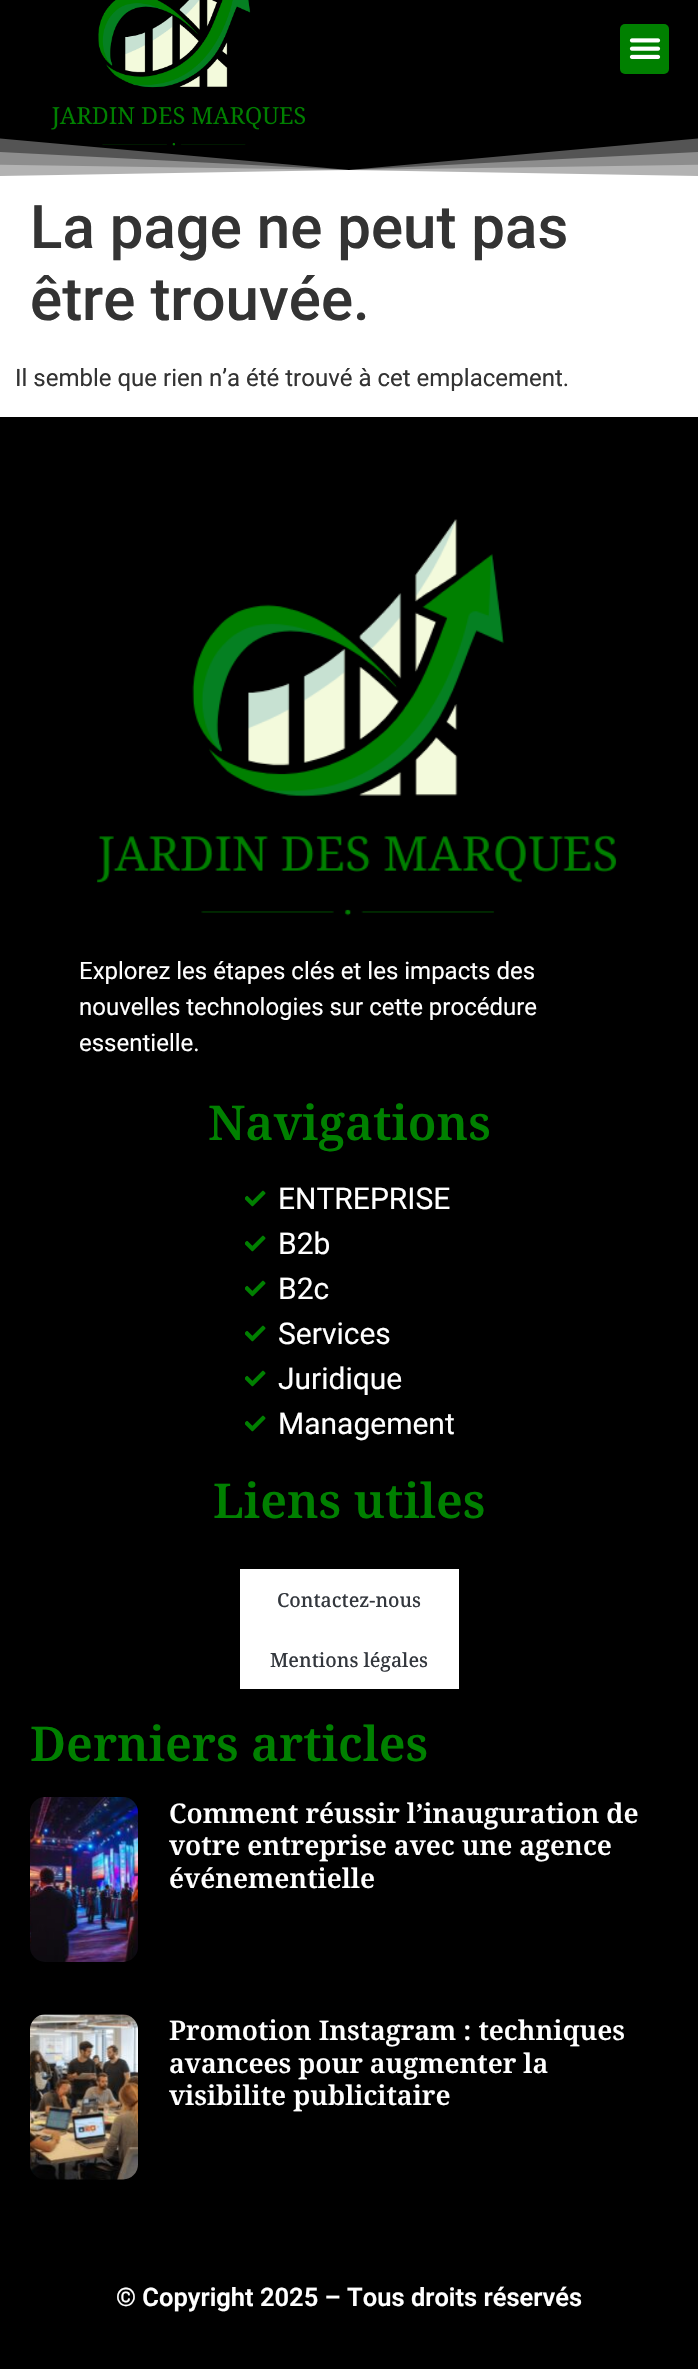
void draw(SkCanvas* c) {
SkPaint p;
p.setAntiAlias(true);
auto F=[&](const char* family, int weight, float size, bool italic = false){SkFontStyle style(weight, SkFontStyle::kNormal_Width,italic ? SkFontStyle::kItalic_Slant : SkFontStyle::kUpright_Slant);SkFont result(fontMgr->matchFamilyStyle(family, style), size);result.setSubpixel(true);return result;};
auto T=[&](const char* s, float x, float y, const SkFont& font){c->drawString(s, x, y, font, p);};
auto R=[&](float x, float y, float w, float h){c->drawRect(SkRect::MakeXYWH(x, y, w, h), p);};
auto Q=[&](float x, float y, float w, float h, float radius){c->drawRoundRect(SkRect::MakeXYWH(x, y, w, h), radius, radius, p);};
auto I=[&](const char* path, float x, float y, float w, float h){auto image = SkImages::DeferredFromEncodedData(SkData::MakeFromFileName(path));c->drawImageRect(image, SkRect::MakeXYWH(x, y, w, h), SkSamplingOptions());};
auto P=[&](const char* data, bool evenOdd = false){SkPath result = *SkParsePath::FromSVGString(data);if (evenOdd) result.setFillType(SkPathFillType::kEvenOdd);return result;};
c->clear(0xffffffff);
p.setColor(0xff000000);
R(0,0,698,176);
p.setColor(0x54ffffff);
c->drawPath(P("M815 182v-54l-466 42l-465-42v54z"),p);
I("1.png",51,0,254,146);
p.setColor(0xff008000);
Q(620,24,49,50,5);
I("2.png",629,38,32,21);
p.setColor(0x54ffffff);
c->drawPath(P("M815 182v-36l-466 24l-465-24v36z"),p);
c->drawPath(P("M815 182v-19l-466 7l-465-7v19z"),p);
p.setColor(0xffffffff);
c->drawPath(P("M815 182v-4l-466-8l-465 8v4z"),p);
auto f1 = F("Roboto",500,60);
p.setColor(0xff333333);
T("La page ne peut pas",30,248,f1);
T("être trouvée.",30,320,f1);
auto f2 = F("Roboto",400,24);
T("Il semble que rien n’a été trouvé à cet emplacement.",15,386,f2);
p.setColor(0xff000000);
R(0,417,698,1952);
I("3.png",97,519,520,397);
p.setColor(0xffffffff);
T("Explorez les étapes clés et les impacts des",79,979,f2);
T("nouvelles technologies sur cette procédure",79,1015,f2);
T("essentielle.",79,1051,f2);
auto f3 = F("Noto Serif",600,48);
p.setColor(0xff008000);
T("Navigations",208,1140,f3);
I("4.png",245,1190,21,17);
auto f4 = F("Roboto",400,30);
p.setColor(0xffffffff);
T("ENTREPRISE",278,1209,f4);
I("4.png",245,1235,21,17);
T("B2b",278,1254,f4);
I("4.png",245,1280,21,17);
T("B2c",278,1299,f4);
I("4.png",245,1325,21,17);
T("Services",278,1344,f4);
I("4.png",245,1370,21,17);
T("Juridique",278,1389,f4);
I("4.png",245,1415,21,17);
T("Management",278,1434,f4);
p.setColor(0xff008000);
T("Liens utiles",213,1518,f3);
p.setColor(0xffffffff);
R(240,1569,219,120);
auto f5 = F("Noto Serif",500,19.5);
p.setColor(0xff33373d);
T("Contactez-nous",277,1607,f5);
T("Mentions légales",270,1667,f5);
p.setColor(0xff008000);
T("Derniers articles",30,1761,f3);
I("5.png",30,1797,108,165);
auto f6 = F("Noto Serif",600,27);
p.setColor(0xffffffff);
T("Comment réussir l’inauguration de",169,1823,f6);
T("votre entreprise avec une agence",169,1855,f6);
T("événementielle",169,1888,f6);
I("6.png",30,2014,108,166);
T("Promotion Instagram : techniques",169,2040,f6);
T("avancees pour augmenter la",169,2073,f6);
T("visibilite publicitaire",169,2105,f6);
auto f7 = F("Roboto",600,25.5);
T("© Copyright 2025 – Tous droits réservés",116,2306,f7);
}
